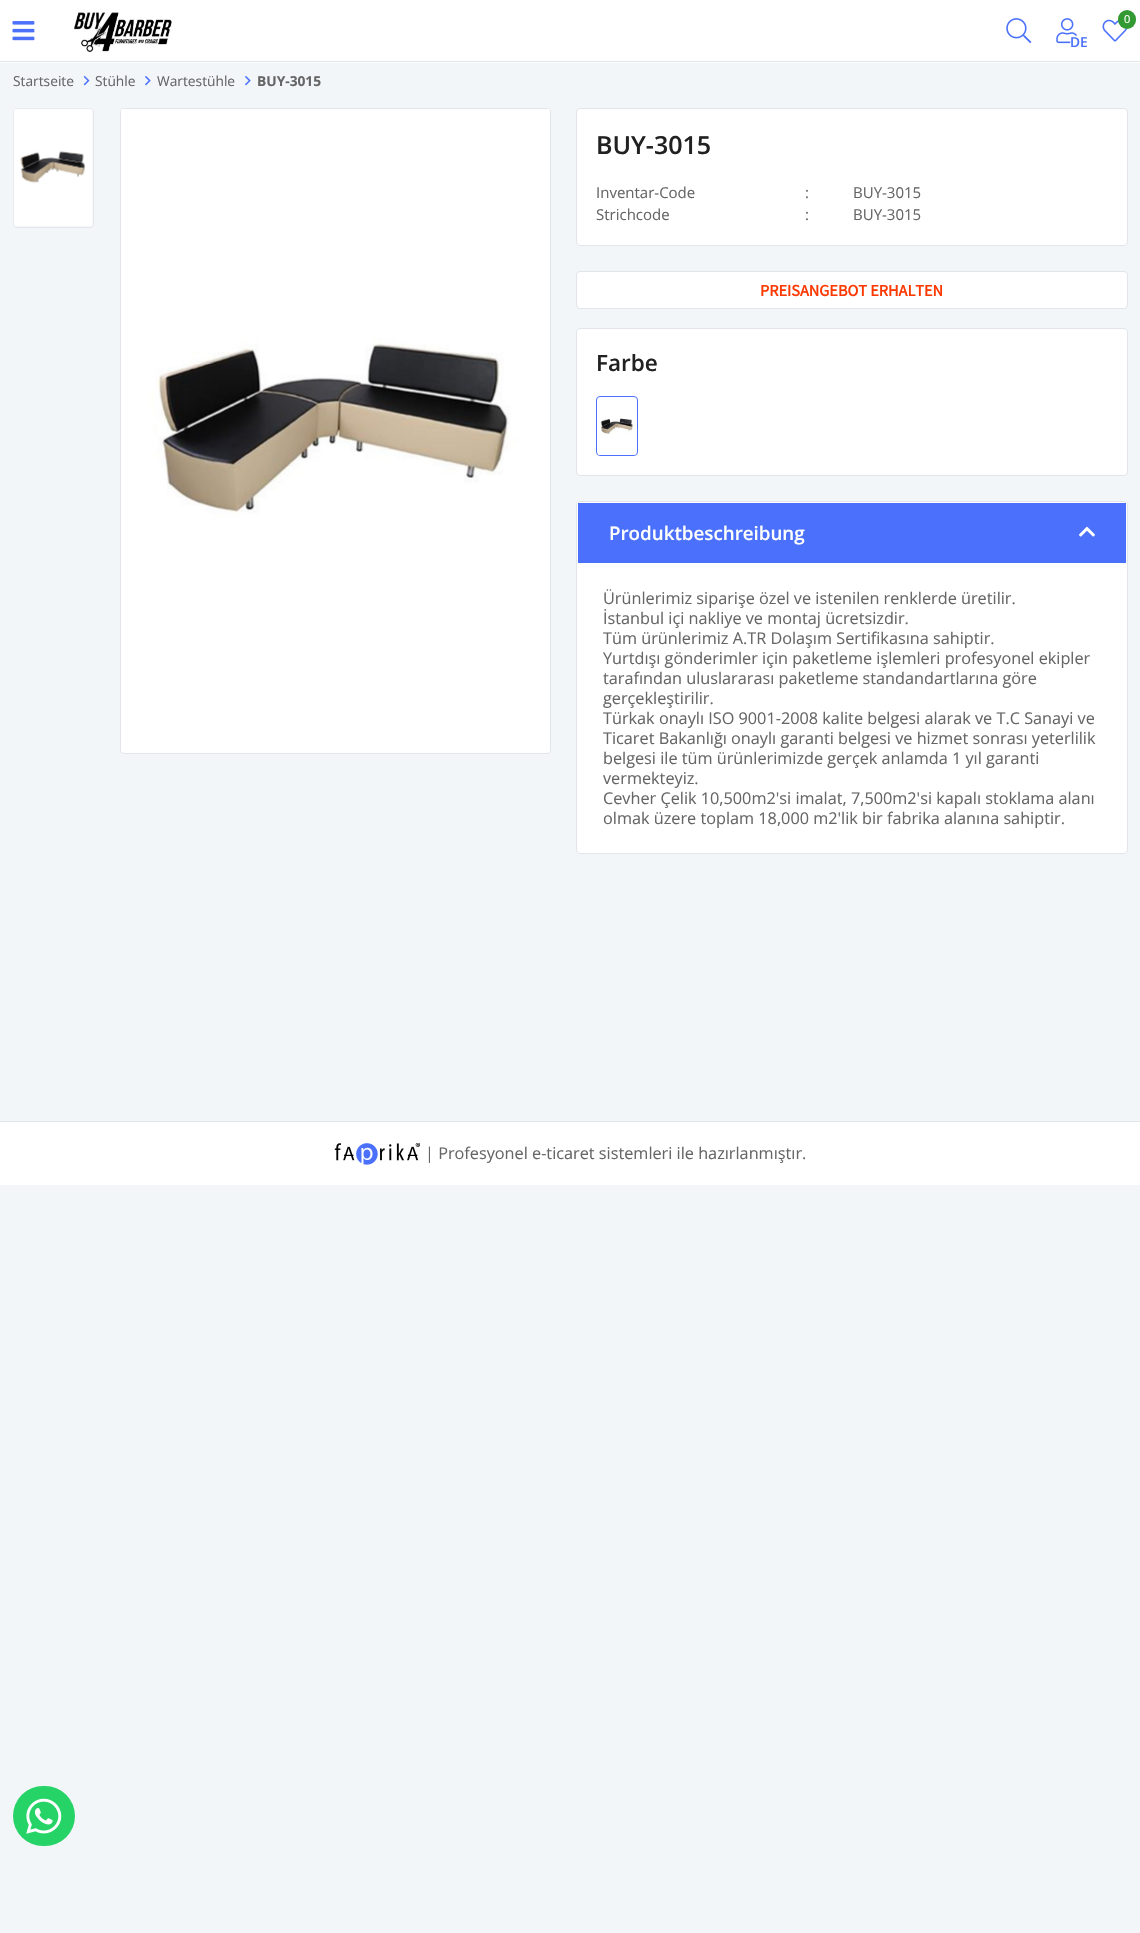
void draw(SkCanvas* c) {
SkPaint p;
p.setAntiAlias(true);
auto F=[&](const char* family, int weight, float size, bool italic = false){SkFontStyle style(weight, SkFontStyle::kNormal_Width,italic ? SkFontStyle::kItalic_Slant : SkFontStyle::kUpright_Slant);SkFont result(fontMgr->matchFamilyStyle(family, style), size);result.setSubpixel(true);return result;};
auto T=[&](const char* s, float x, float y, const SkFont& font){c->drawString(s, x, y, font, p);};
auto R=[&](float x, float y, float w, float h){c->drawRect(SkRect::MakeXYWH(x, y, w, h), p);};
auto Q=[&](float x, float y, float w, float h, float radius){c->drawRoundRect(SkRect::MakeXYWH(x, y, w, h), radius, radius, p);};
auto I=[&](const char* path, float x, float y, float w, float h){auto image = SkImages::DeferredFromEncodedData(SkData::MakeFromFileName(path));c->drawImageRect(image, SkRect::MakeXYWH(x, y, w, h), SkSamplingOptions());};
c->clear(0xfff3f6f9);
p.setColor(0xffffffff);
R(0,0,1140,63);
p.setColor(0xffe2e6eb);
R(0,61,1140,1);
I("1.png",12,21,23,20);
I("2.png",74,12,98,41);
I("3.png",1006,18,26,26);
I("4.png",1056,18,22,26);
p.setColor(0xffffffff);
c->drawCircle(1079.5,44.5,9.5,p);
auto f1 = F("Open Sans",600,13.75);
p.setColor(0xff4b71fc);
T("DE",1070,47,f1);
I("5.png",1102,19,26,23);
p.setColor(0xff339933);
Q(1118,10,18,19,9);
auto f2 = F("Open Sans",400,11);
p.setColor(0xffffffff);
T("0",1124,23,f2);
auto f3 = F("Open Sans",400,13.75);
p.setColor(0xff666666);
T("Startseite",13,86,f3);
I("6.png",83,76,7,10);
T("Stühle",95,86,f3);
I("7.png",145,76,6,10);
T("Wartestühle",157,86,f3);
I("7.png",245,76,6,10);
auto f4 = F("Open Sans",700,13.75);
T("BUY-3015",257,86,f4);
p.setStroke(true);
p.setStrokeWidth(1);
p.setColor(0xffe2e6eb);
c->drawRoundRect(SkRect::MakeXYWH(13.5,108.5,80,119),3.5,3.5,p);
I("8.png",13,108,80,119);
p.setStroke(false);
p.setColor(0xffffffff);
c->drawRoundRect(SkRect::MakeXYWH(120.5,108.5,430,645),3.5,3.5,p);
p.setStroke(true);
p.setColor(0xffe2e6eb);
c->drawRoundRect(SkRect::MakeXYWH(120.5,108.5,430,645),3.5,3.5,p);
I("9.png",121,109,429,643);
p.setStroke(false);
p.setColor(0xffffffff);
c->drawRoundRect(SkRect::MakeXYWH(576.5,108.5,551,137),3.5,3.5,p);
p.setStroke(true);
p.setColor(0xffe2e6eb);
c->drawRoundRect(SkRect::MakeXYWH(576.5,108.5,551,137),3.5,3.5,p);
auto f5 = F("Open Sans",600,25);
p.setStroke(false);
p.setColor(0xff212121);
T("BUY-3015",596,154,f5);
auto f6 = F("Open Sans",400,15);
p.setColor(0xff666666);
T("Inventar-Code",596,198,f6);
T(":",805,198,f6);
T("BUY-3015",853,198,f6);
T("Strichcode",596,220,f6);
T(":",805,220,f6);
T("BUY-3015",853,220,f6);
p.setColor(0xffffffff);
c->drawRoundRect(SkRect::MakeXYWH(576.5,271.5,551,37),3.5,3.5,p);
p.setStroke(true);
p.setColor(0xffe2e6eb);
c->drawRoundRect(SkRect::MakeXYWH(576.5,271.5,551,37),3.5,3.5,p);
auto f7 = F("Source Sans Pro",700,16.25);
p.setStroke(false);
p.setColor(0xfffc3903);
T("PREISANGEBOT ERHALTEN",760,296,f7);
p.setColor(0xffffffff);
c->drawRoundRect(SkRect::MakeXYWH(576.5,328.5,551,147),3.5,3.5,p);
p.setStroke(true);
p.setColor(0xffe2e6eb);
c->drawRoundRect(SkRect::MakeXYWH(576.5,328.5,551,147),3.5,3.5,p);
auto f8 = F("Open Sans",600,22.5);
p.setStroke(false);
p.setColor(0xff212121);
T("Farbe",596,371,f8);
p.setStroke(true);
p.setColor(0xff4b71fc);
c->drawRoundRect(SkRect::MakeXYWH(596.5,396.5,41,59),3.5,3.5,p);
I("10.png",597,418,39,37);
p.setStroke(false);
p.setColor(0xffffffff);
c->drawRoundRect(SkRect::MakeXYWH(576.5,501.5,551,352),3.5,3.5,p);
p.setStroke(true);
p.setColor(0xffe2e6eb);
c->drawRoundRect(SkRect::MakeXYWH(576.5,501.5,551,352),3.5,3.5,p);
p.setStroke(false);
p.setColor(0xff4b71fc);
R(578,503,548,60);
auto f9 = F("Open Sans",600,18.75);
p.setColor(0xffffffff);
T("Produktbeschreibung",609,540,f9);
I("11.png",1079,526,16,11);
auto f10 = F("Open Sans",400,16.25);
p.setColor(0xff666666);
T("Ürünlerimiz siparişe özel ve istenilen renklerde üretilir.",603,604,f10);
T("İstanbul içi nakliye ve montaj ücretsizdir.",603,624,f10);
T("Tüm ürünlerimiz A.TR Dolaşım Sertifikasına sahiptir.",603,644,f10);
T("Yurtdışı gönderimler için paketleme işlemleri profesyonel ekipler",603,664,f10);
T("tarafından uluslararası paketleme standandartlarına göre",603,684,f10);
T("gerçekleştirilir.",603,704,f10);
T("Türkak onaylı ISO 9001-2008 kalite belgesi alarak ve T.C Sanayi ve",603,724,f10);
T("Ticaret Bakanlığı onaylı garanti belgesi ve hizmet sonrası yeterlilik",603,744,f10);
T("belgesi ile tüm ürünlerimizde gerçek anlamda 1 yıl garanti",603,764,f10);
T("vermekteyiz.",603,784,f10);
T("Cevher Çelik 10,500m2'si imalat, 7,500m2'si kapalı stoklama alanı",603,804,f10);
T("olmak üzere toplam 18,000 m2'lik bir fabrika alanına sahiptir.",603,824,f10);
p.setColor(0xffffffff);
R(0,1122,1140,63);
p.setColor(0xffe2e6eb);
R(0,1121,1140,1);
I("12.png",334,1143,86,22);
p.setColor(0xff666666);
T("| Profesyonel e-ticaret sistemleri ile hazırlanmıştır.",425,1159,f10);
p.setColor(0xff25d366);
Q(13,1786,62,60,30);
I("13.png",26,1798,36,36);
}
